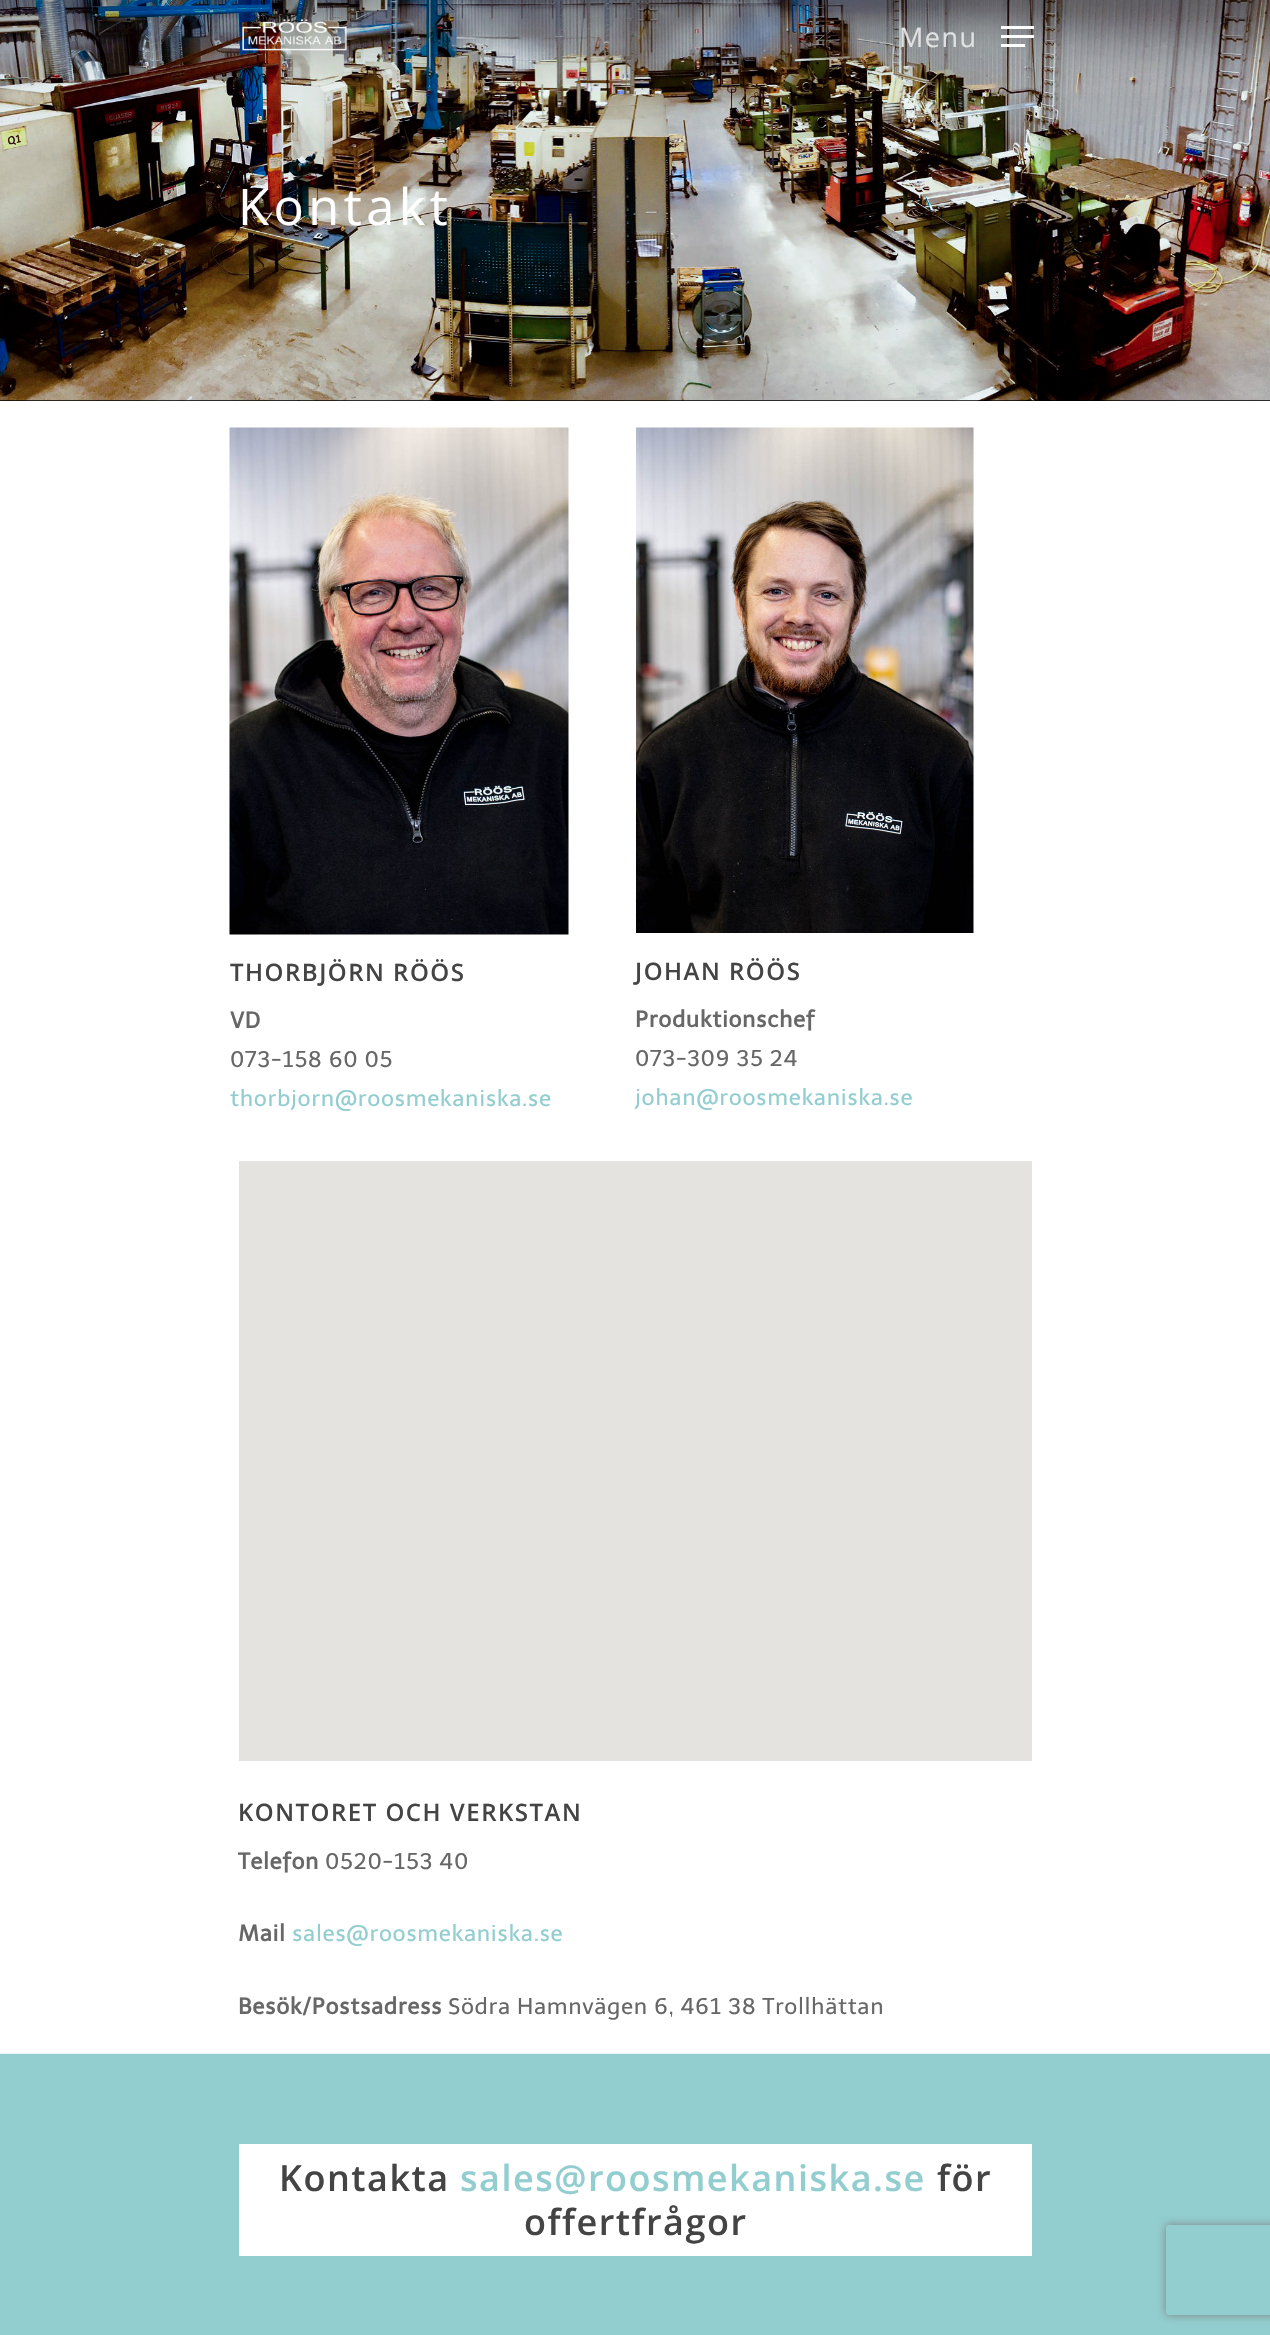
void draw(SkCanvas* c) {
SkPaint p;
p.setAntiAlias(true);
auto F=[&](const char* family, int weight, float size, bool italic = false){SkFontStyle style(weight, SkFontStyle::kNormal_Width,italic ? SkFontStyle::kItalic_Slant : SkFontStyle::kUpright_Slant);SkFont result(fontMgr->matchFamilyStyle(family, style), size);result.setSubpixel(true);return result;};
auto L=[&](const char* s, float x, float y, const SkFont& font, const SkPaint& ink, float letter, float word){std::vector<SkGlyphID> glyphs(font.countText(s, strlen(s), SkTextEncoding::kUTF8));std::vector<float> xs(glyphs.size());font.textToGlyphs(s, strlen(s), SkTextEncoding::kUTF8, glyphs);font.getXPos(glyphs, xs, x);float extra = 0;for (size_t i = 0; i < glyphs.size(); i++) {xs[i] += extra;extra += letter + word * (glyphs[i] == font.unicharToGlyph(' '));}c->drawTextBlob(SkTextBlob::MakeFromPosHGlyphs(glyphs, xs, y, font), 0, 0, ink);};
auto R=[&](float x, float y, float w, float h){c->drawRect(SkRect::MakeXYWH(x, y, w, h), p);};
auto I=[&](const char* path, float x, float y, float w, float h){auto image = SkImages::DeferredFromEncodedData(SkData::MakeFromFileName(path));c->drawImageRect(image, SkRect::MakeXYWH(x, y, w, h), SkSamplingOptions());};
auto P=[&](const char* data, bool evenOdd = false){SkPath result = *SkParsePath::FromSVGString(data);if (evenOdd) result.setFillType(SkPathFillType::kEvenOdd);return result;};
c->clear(0xffffffff);
p.setColor(0xff000000);
R(0,400,1270,1);
I("2.png",0,0,1270,401);
I("1.png",242,19,105,32);
auto f1 = F("Open Sans",400,27);
p.setColor(0xffe1e1e2);
L("Menu",899,47,f1,p,1.5,0);
p.setColor(0xffffffff);
R(1001,26,33,3);
R(1001,44,24,3);
R(1001,35,33,3);
auto f2 = F("Open Sans",400,50.5);
L("Kontakt",238,225,f2,p,4.5,0);
I("3.png",229,427,340,508);
auto f3 = F("Open Sans",600,24);
p.setColor(0xff444444);
L("THORBJÖRN RÖÖS",230,981,f3,p,1.5,0);
auto f4 = F("Telex",700,22.5);
p.setColor(0xff676767);
L("VD",230,1028,f4,p,.6,0);
auto f5 = F("Telex",400,22.5);
L("073-158 60 05",230,1067,f5,p,.6,0);
p.setColor(0xff92cdcf);
L("thorbjorn@roosmekaniska.se",230,1106,f5,p,.6,0);
I("4.png",636,427,338,506);
p.setColor(0xff444444);
L("JOHAN RÖÖS",635,980,f3,p,1.5,0);
p.setColor(0xff676767);
L("Produktionschef",635,1027,f4,p,.6,0);
L("073-309 35 24",635,1066,f5,p,.6,0);
p.setColor(0xff92cdcf);
L("johan@roosmekaniska.se",635,1105,f5,p,.6,0);
p.setColor(0xffe5e3df);
R(239,1161,793,600);
p.setColor(0xff444444);
L("KONTORET OCH VERKSTAN",238,1821,f3,p,1.5,0);
p.setColor(0xff676767);
L("Telefon",238,1869,f4,p,.6,0);
L("0520-153 40",325,1869,f5,p,.6,0);
L("Mail",238,1941,f4,p,.6,0);
p.setColor(0xff92cdcf);
L("sales@roosmekaniska.se",292,1941,f5,p,.6,0);
p.setColor(0xff676767);
L("Besök/Postsadress",238,2014,f4,p,.6,0);
L("Södra Hamnvägen 6, 461 38 Trollhättan",448,2014,f5,p,.6,0);
p.setColor(0xff92cdcf);
R(0,2054,1270,281);
p.setColor(0xffe4f3f3);
R(0,2053,1270,1);
p.setColor(0xffffffff);
R(239,2144,793,112);
auto f6 = F("Open Sans",600,36);
p.setColor(0xff444444);
L("Kontakta",279,2191,f6,p,1.5,0);
p.setColor(0xff92cdcf);
L("sales@roosmekaniska.se",460,2191,f6,p,1.5,0);
p.setColor(0xff444444);
L("för",937,2191,f6,p,1.5,0);
L("offertfrågor",524,2235,f6,p,1.5,0);
c->save();
c->clipPath(P("M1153 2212h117v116h-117zm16 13h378c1.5 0 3 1.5 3 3v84c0 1.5-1.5 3-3 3h-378c-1.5 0-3-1.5-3-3v-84c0-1.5 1.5-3 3-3z",true),true);
p.setColor(0xff808080);
p.setMaskFilter(SkMaskFilter::MakeBlur(kNormal_SkBlurStyle, 4));
c->drawRoundRect(SkRect::MakeXYWH(1166,2225,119,90),3,3,p);
p.setMaskFilter(nullptr);
c->restore();
}
